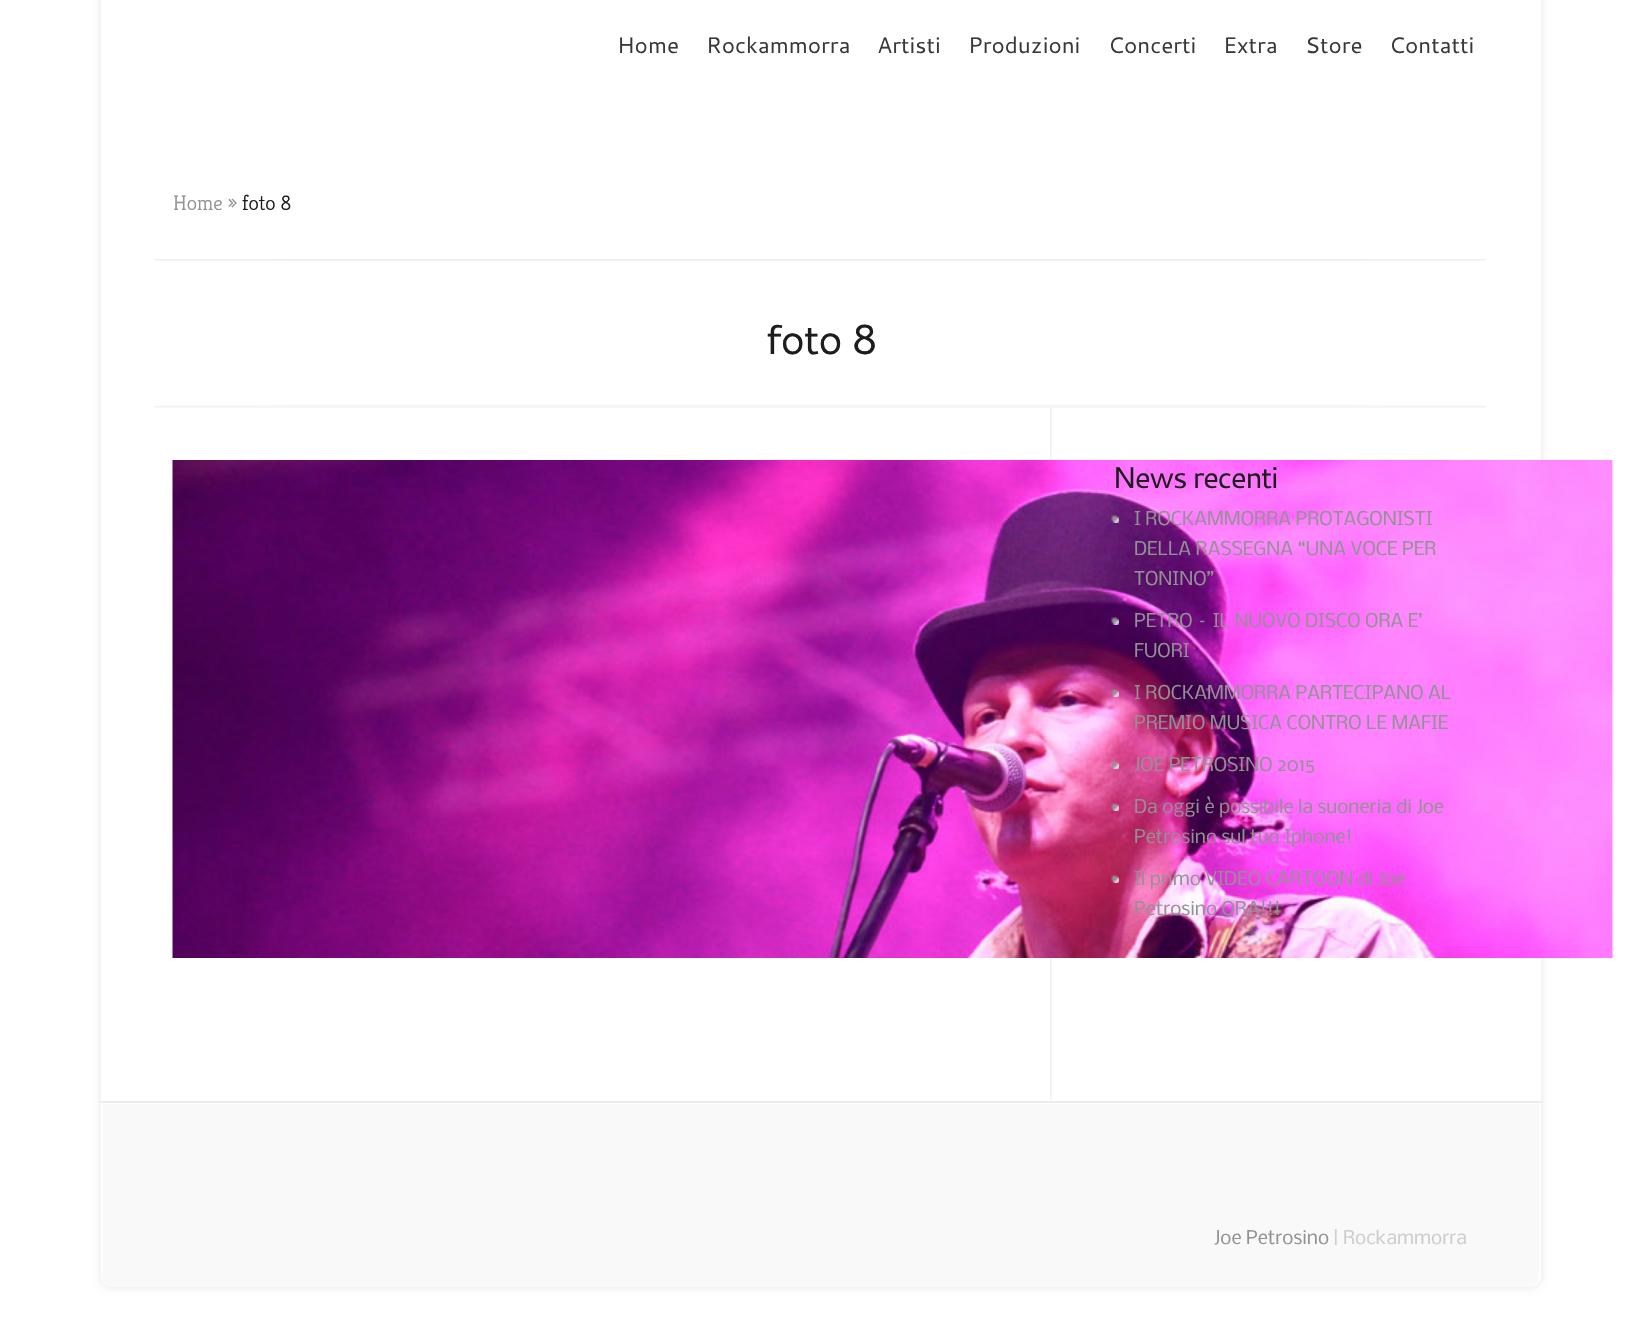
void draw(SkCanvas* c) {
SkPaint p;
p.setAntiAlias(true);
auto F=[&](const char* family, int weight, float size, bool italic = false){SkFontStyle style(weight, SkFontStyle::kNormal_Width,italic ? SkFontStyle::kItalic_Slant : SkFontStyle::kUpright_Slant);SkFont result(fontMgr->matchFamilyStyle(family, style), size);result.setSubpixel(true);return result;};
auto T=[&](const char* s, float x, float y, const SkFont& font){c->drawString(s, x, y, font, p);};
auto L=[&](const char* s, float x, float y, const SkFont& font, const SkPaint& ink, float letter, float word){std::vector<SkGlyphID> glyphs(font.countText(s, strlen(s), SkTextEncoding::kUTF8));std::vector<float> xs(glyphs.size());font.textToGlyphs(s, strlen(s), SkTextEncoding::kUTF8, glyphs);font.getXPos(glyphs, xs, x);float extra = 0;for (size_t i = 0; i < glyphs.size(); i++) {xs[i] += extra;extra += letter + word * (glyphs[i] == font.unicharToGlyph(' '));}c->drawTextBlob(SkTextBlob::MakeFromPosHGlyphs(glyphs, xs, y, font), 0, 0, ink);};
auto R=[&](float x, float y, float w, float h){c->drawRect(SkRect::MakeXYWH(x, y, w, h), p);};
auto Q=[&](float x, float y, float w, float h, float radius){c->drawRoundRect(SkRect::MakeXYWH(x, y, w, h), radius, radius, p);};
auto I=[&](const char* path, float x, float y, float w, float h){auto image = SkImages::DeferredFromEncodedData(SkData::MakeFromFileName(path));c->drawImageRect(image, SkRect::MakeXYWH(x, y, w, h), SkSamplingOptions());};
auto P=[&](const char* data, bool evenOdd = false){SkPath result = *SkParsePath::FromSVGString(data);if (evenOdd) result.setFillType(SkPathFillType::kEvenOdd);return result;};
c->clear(0xffffffff);
p.setColor(0x1a000000);
p.setMaskFilter(SkMaskFilter::MakeBlur(kNormal_SkBlurStyle, 4.5));
c->drawRoundRect(SkRect::MakeXYWH(101,-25,1440,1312),11,11,p);
p.setMaskFilter(nullptr);
p.setColor(0xffffffff);
Q(101,-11,1440,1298,11);
auto f1 = F("Cantarell",400,22.5);
p.setColor(0xff393939);
T("Home",617,53,f1);
T("Rockammorra",706,53,f1);
T("Artisti",877,53,f1);
T("Produzioni",968,53,f1);
T("Concerti",1108,53,f1);
T("Extra",1223,53,f1);
T("Store",1305,53,f1);
T("Contatti",1389,53,f1);
auto f2 = F("Kreon",300,21);
p.setColor(0xff929292);
T("Home »",173,210,f2);
p.setColor(0xff1d1d1d);
T("foto 8",242,210,f2);
I("1.png",154,259,1333,2);
I("2.png",154,404,1333,4);
auto f3 = F("Cantarell",400,42);
L("foto 8",765,354,f3,p,-1.5,0);
I("3.png",1050,408,2,693);
I("4.png",172,460,1441,498);
auto f4 = F("Cantarell",400,30);
L("News recenti",1112,488,f4,p,-1.5,0);
I("5.png",1111,515,8,8);
auto f5 = F("Nobile",400,18);
p.setColor(0xff929292);
T("I ROCKAMMORRA PROTAGONISTI",1134,525,f5);
T("DELLA RASSEGNA “UNA VOCE PER",1134,555,f5);
T("TONINO”",1134,585,f5);
I("6.png",1111,617,8,8);
T("PETRO – IL NUOVO DISCO ORA E’",1134,627,f5);
T("FUORI",1134,657,f5);
I("7.png",1111,689,8,8);
T("I ROCKAMMORRA PARTECIPANO AL",1134,699,f5);
T("PREMIO MUSICA CONTRO LE MAFIE",1134,729,f5);
I("8.png",1111,761,8,8);
T("JOE PETROSINO 2015",1134,771,f5);
I("9.png",1111,803,8,8);
T("Da oggi è possibile la suoneria di Joe",1134,813,f5);
T("Petrosino sul tuo Iphone!",1134,843,f5);
I("10.png",1111,875,8,8);
T("Il primo VIDEO CARTOON di Joe",1134,885,f5);
T("Petrosino ORA!!!",1134,915,f5);
p.setColor(0xffececec);
R(101,1101,1440,2);
p.setColor(0xfff9f9f9);
c->drawPath(P("M102 1104h1437v172c0 6-5 11-11 11h-1415c-6 0-11-5-11-11z"),p);
p.setColor(0xff929292);
T("Joe Petrosino",1214,1244,f5);
p.setColor(0xffcdcdcd);
T("| Rockammorra",1333,1244,f5);
}
